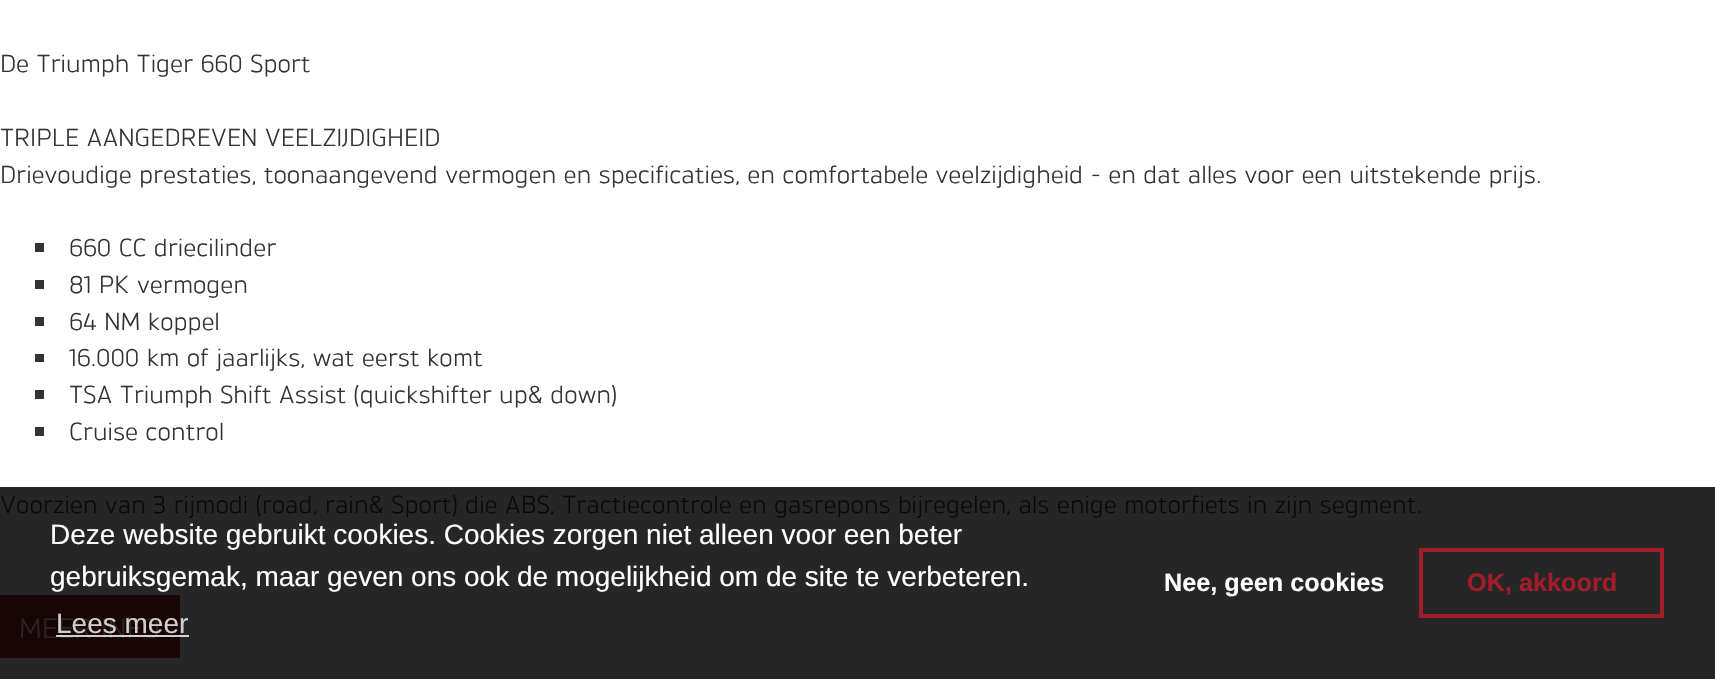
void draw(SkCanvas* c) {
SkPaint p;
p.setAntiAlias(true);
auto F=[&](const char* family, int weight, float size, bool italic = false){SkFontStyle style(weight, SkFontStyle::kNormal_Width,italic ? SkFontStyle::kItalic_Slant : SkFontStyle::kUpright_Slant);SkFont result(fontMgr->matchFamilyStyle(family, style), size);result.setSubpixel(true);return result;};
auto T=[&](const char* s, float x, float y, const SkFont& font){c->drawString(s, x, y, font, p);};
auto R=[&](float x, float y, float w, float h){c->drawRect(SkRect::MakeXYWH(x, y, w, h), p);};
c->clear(0xffffffff);
p.setColor(0xff262626);
R(0,487,1715,192);
auto f1 = F("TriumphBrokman",400,24.5);
p.setColor(0xff333333);
T("De Triumph Tiger 660 Sport",0,72,f1);
T("TRIPLE AANGEDREVEN VEELZIJDIGHEID",0,146,f1);
T("Drievoudige prestaties, toonaangevend vermogen en specificaties, en comfortabele veelzijdigheid - en dat alles voor een uitstekende prijs.",0,183,f1);
R(35,243,9,9);
T("660 CC driecilinder",69,256,f1);
R(35,280,9,9);
T("81 PK vermogen",69,293,f1);
R(35,317,9,9);
T("64 NM koppel",69,330,f1);
R(35,354,9,8);
T("16.000 km of jaarlijks, wat eerst komt",69,366,f1);
R(35,390,9,9);
T("TSA Triumph Shift Assist (quickshifter up& down)",69,403,f1);
R(35,427,9,9);
T("Cruise control",69,440,f1);
p.setColor(0xff080808);
T("Voorzien van 3 rijmodi (road, rain& Sport) die ABS, Tractiecontrole en gasrepons bijregelen, als enige motorfiets in zijn segment.",0,513,f1);
p.setColor(0xff190406);
R(0,595,180,63);
auto f2 = F("TriumphBrokman",400,28);
p.setColor(0xff262626);
T("MEER INFO",19,638,f2);
auto f3 = F("Liberation Sans",400,28);
p.setColor(0xffffffff);
T("Deze website gebruikt cookies. Cookies zorgen niet alleen voor een beter",50,544,f3);
T("gebruiksgemak, maar geven ons ook de mogelijkheid om de site te verbeteren.",50,586,f3);
p.setColor(0xffd2cecf);
T("Lees meer",56,633,f3);
p.setColor(0xccffffff);
R(56,635,133,2);
auto f4 = F("Liberation Sans",700,25.25);
p.setColor(0xffffffff);
T("Nee, geen cookies",1164,591,f4);
p.setStroke(true);
p.setStrokeWidth(4);
p.setColor(0xffa41c29);
c->drawRect(SkRect::MakeXYWH(1421,550,241,66),p);
p.setStroke(false);
T("OK, akkoord",1467,591,f4);
}
